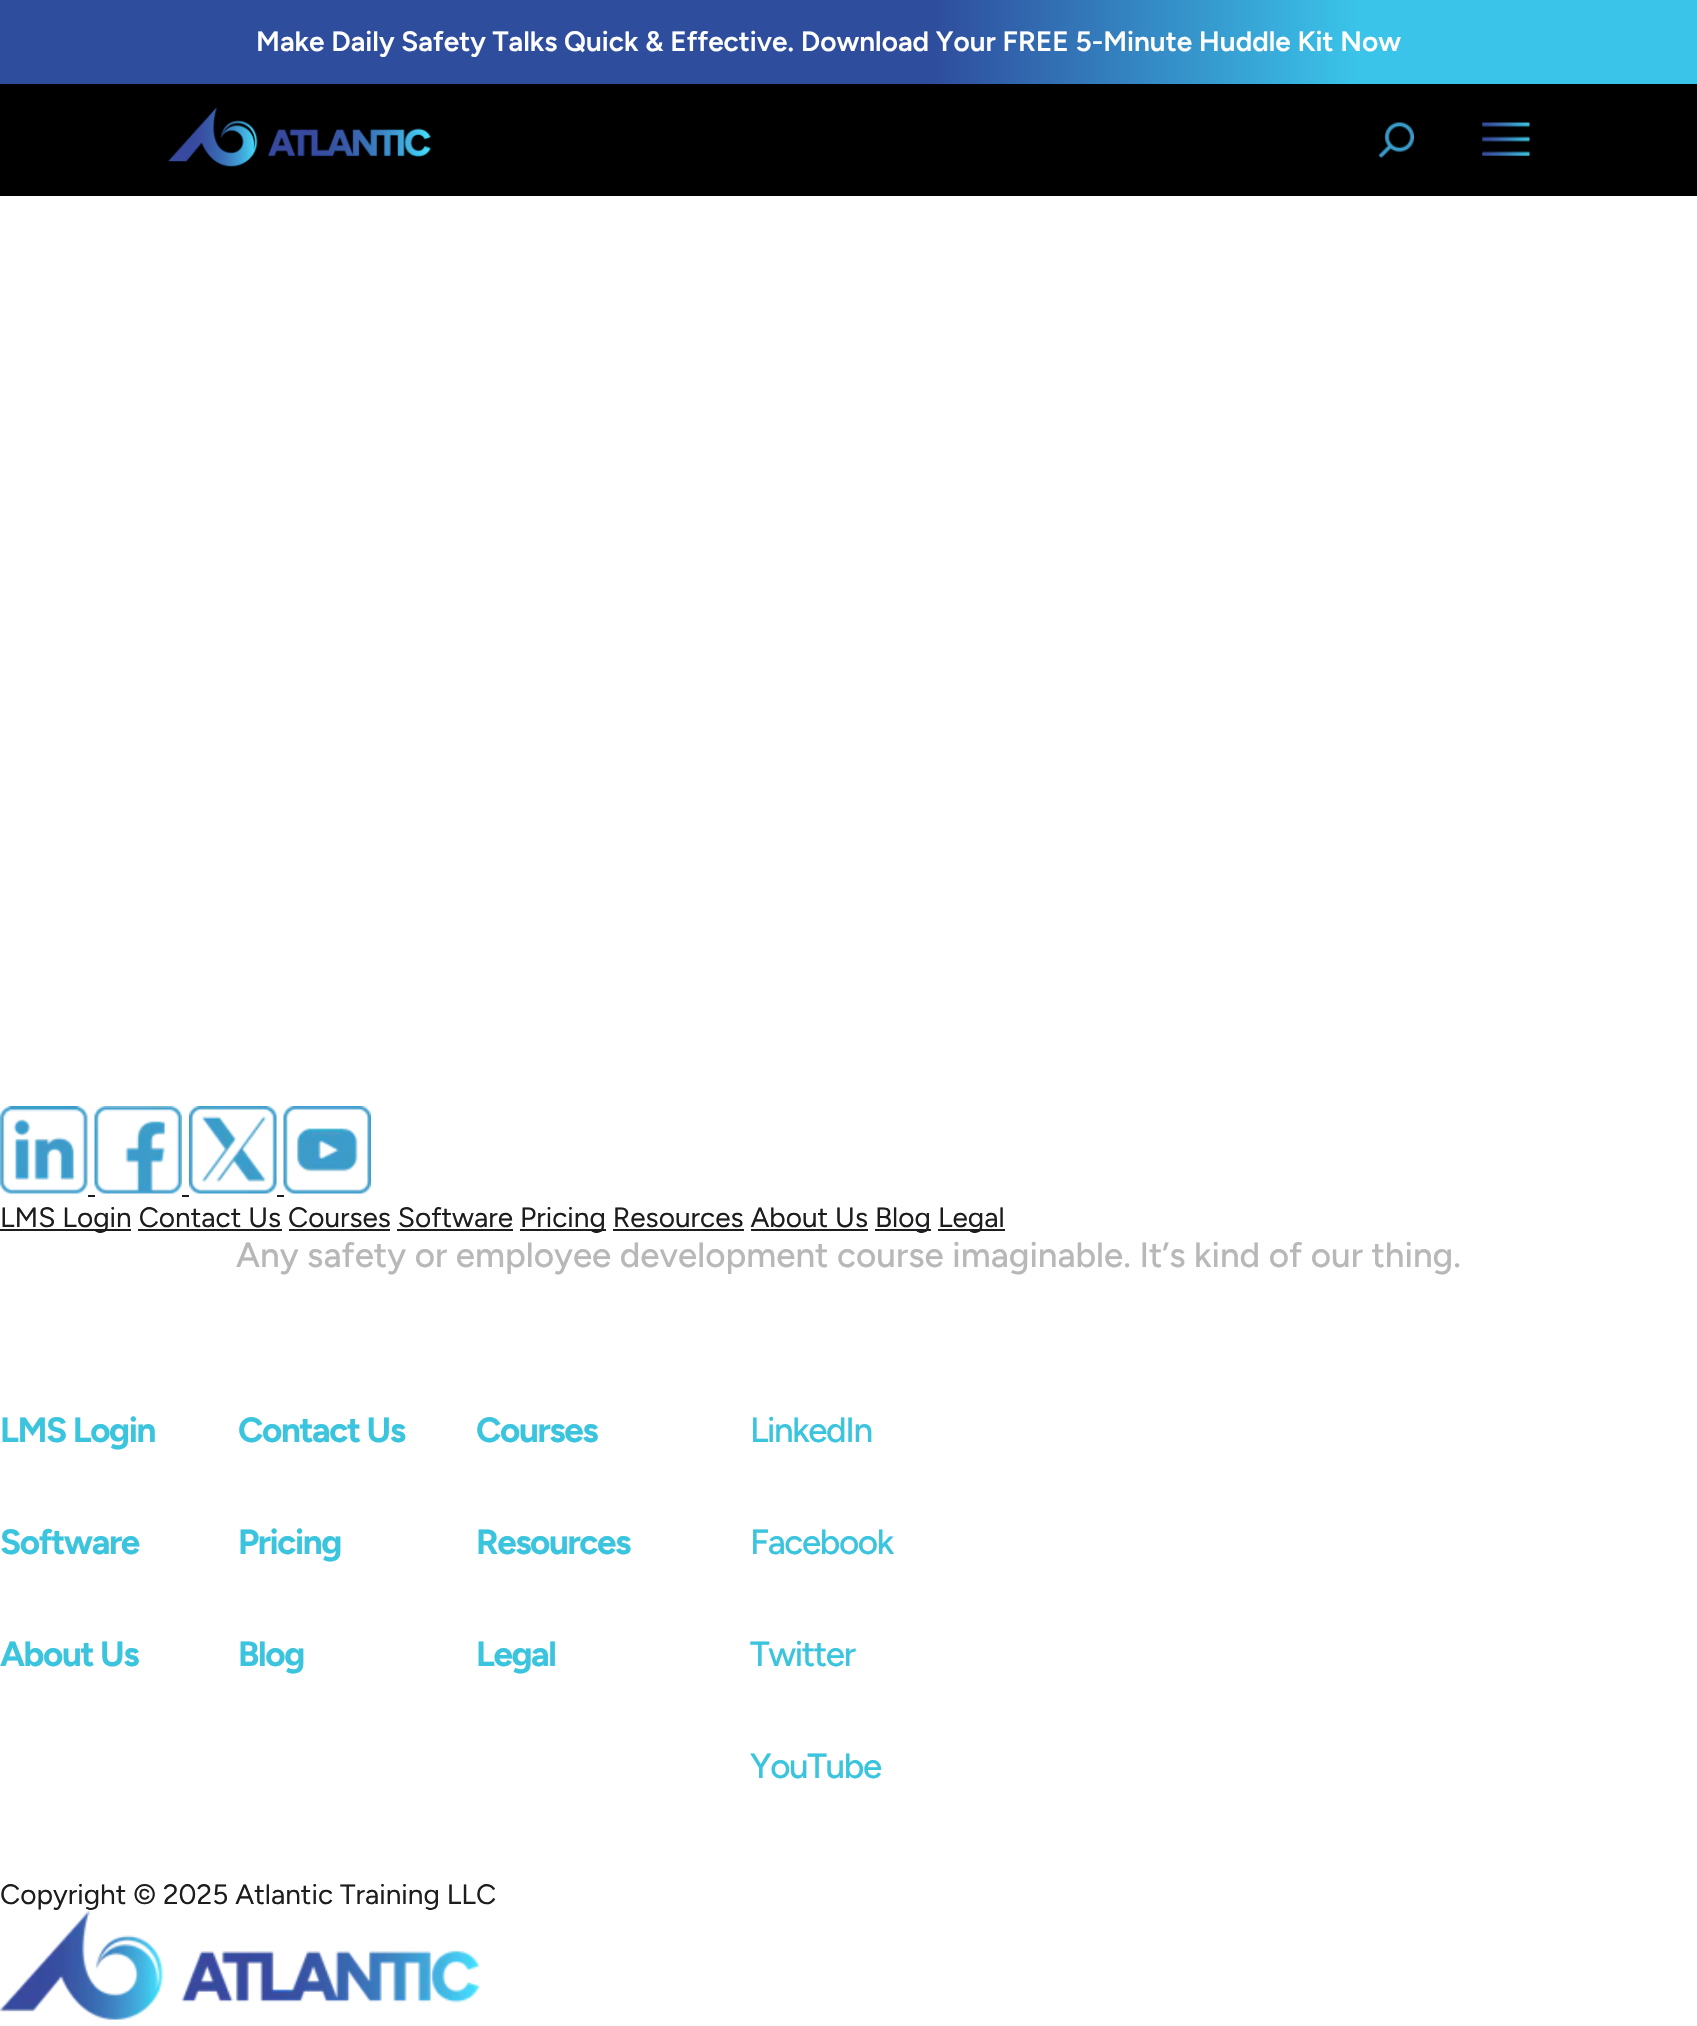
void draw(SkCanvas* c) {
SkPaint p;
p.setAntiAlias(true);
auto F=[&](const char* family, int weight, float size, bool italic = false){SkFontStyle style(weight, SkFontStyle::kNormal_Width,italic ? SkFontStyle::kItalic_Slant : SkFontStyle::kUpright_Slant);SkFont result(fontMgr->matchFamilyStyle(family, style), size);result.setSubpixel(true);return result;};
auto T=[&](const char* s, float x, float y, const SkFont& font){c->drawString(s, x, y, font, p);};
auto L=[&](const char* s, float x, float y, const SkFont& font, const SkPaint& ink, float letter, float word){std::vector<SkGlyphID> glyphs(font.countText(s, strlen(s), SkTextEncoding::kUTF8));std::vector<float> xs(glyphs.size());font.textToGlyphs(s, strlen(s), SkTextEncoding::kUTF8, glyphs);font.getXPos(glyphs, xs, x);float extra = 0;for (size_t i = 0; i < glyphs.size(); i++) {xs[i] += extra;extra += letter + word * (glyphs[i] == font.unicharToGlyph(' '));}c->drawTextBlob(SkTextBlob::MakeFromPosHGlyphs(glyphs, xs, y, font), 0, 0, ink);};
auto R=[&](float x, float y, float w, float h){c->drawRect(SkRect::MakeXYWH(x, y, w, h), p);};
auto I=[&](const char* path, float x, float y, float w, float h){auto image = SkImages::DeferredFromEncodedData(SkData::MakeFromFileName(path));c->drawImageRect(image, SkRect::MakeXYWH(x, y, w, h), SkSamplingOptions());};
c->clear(0xffffffff);
{
const SkColor colors[] = {0xff2f4d9d,0xff3ac4ea};
const float stops[] = {.55,.8};
const SkPoint ends[] = {{0,42}, {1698,42}};
p.setShader(SkGradientShader::MakeLinear(ends, colors, stops, 2, SkTileMode::kClamp));
p.setAlpha(255);
}
R(0,0,1697,84);
auto f1 = F("Figtree",600,28);
p.setShader(nullptr);
p.setColor(0xffffffff);
T("Make Daily Safety Talks Quick & Effective. Download Your FREE 5-Minute Huddle Kit Now",256,51,f1);
p.setColor(0xff000000);
R(0,84,1697,112);
I("1.png",168,107,263,60);
I("2.png",1379,122,35,36);
I("3.png",1482,122,48,34);
I("4.png",0,1106,88,88);
I("5.png",94,1106,88,88);
I("6.png",189,1106,88,88);
I("7.png",283,1106,88,88);
p.setColor(0xff1d1d1f);
R(88,1195,7,2);
R(182,1195,7,2);
R(277,1195,7,2);
R(0,1229,131,2);
auto f2 = F("Figtree",400,28);
T("LMS Login Contact Us Courses Software",0,1227,f2);
R(520,1229,86,2);
T("Pricing Resources About Us",520,1227,f2);
R(875,1229,56,2);
T("Blog",875,1227,f2);
R(938,1229,67,2);
T("Legal",938,1227,f2);
R(138,1229,144,2);
R(289,1229,101,2);
R(397,1229,116,2);
R(613,1229,131,2);
R(751,1229,117,2);
auto f3 = F("Figtree",500,35);
p.setColor(0xffb8b8b8);
T("Any safety or employee development course imaginable. It’s kind of our thing.",236,1267,f3);
auto f4 = F("Figtree",700,35);
p.setColor(0xff3ac4de);
L("LMS Login",0,1442,f4,p,-1.4,0);
L("Contact Us",238,1442,f4,p,-1.4,0);
L("Courses",476,1442,f4,p,-1.4,0);
L("Software",0,1554,f4,p,-1.4,0);
L("Pricing",238,1554,f4,p,-1.4,0);
L("Resources",476,1554,f4,p,-1.4,0);
L("About Us",0,1666,f4,p,-1.4,0);
L("Blog",238,1666,f4,p,-1.4,0);
L("Legal",476,1666,f4,p,-1.4,0);
L("LinkedIn",750,1442,f3,p,-1.4,0);
L("Facebook",750,1554,f3,p,-1.4,0);
L("Twitter",750,1666,f3,p,-1.4,0);
L("YouTube",750,1778,f3,p,-1.4,0);
p.setColor(0xff1d1d1f);
T("Copyright © 2025 Atlantic Training LLC",0,1904,f2);
I("8.png",0,1911,480,109);
}
